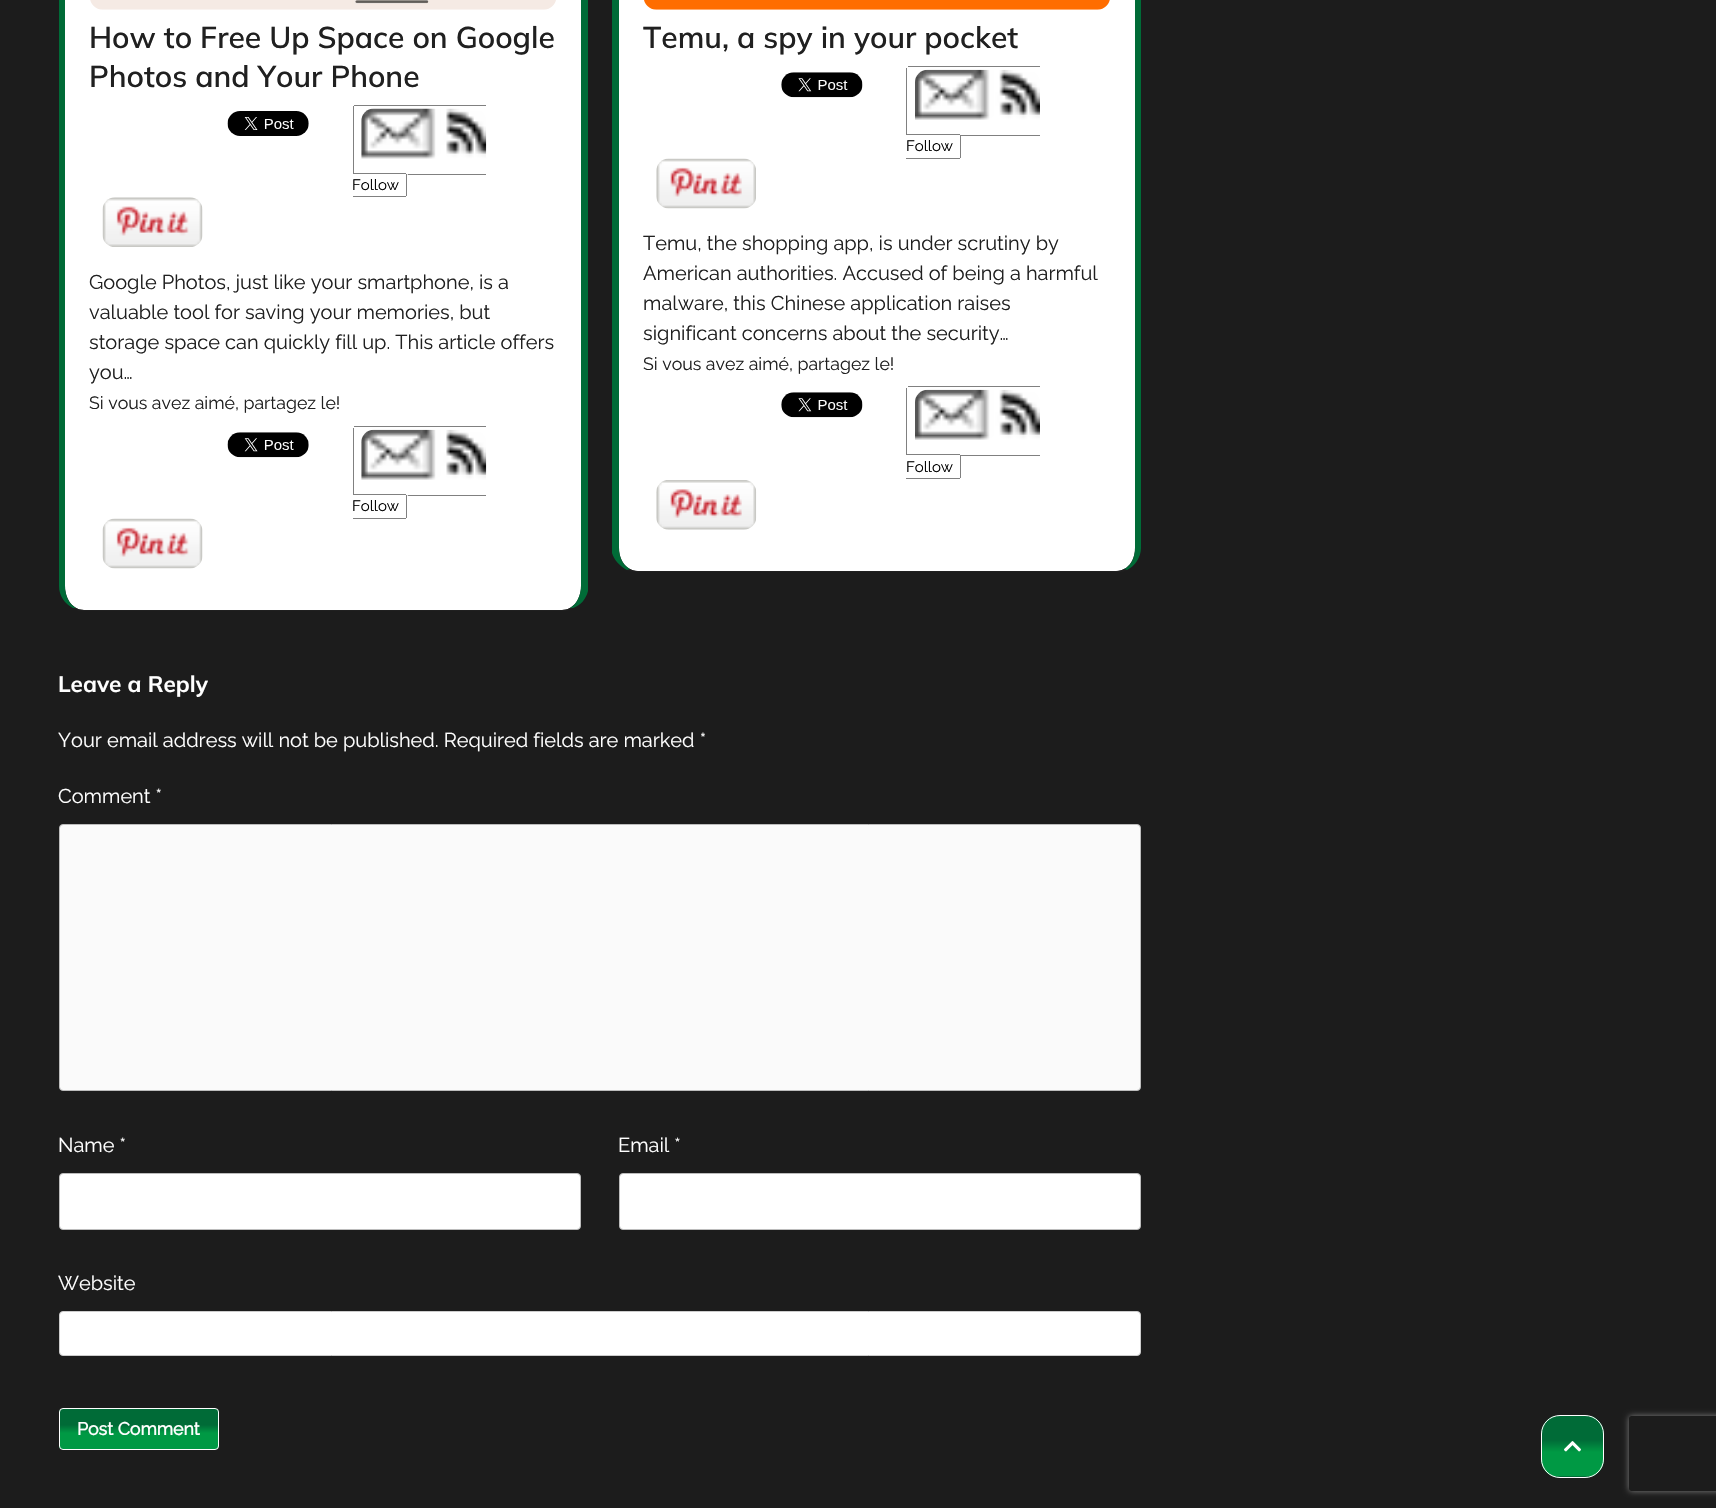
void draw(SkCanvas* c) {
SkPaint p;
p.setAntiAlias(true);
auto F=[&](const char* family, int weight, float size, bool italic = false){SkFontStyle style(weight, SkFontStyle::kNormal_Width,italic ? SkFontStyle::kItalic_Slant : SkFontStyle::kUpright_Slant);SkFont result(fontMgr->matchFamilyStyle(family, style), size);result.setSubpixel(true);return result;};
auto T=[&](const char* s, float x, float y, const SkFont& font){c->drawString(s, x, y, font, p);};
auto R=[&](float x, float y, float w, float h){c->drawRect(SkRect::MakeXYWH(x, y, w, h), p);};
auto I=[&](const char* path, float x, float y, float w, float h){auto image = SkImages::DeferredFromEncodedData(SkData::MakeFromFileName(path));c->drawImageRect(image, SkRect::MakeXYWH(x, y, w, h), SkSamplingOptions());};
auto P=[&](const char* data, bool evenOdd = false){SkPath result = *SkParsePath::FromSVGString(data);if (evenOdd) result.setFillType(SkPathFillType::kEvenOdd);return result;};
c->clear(0xff1c1c1c);
p.setColor(0xffffffff);
c->drawPath(P("M84-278h478c11 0 19 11 19 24v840c0 13-8 24-19 24h-478c-11 0-19-11-19-24v-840c0-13 8-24 19-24z"),p);
p.setColor(0xff006b37);
c->drawPath(P("M588 591c-2 8-7 14-15 17h-3c7-4 11-13 11-22v-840c0-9-4-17-10-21l3-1c7 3 12 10 14 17z"),p);
p.setColor(0xff202020);
c->drawPath(P("M573 608c-3 2-7 3-11 3h-478c-4 0-8-1-11-3h3c2 1 5 2 8 2h478c3 0 6-1 8-2z"),p);
p.setColor(0xff006b37);
c->drawPath(P("M73 608c-8-4-14-12-14-22v-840c0-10 5-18 13-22l3 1c-6 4-10 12-10 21v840c0 10 4 18 11 22z"),p);
I("1.png",90,0,466,10);
auto f1 = F("Mulish",600,30);
p.setColor(0xff202020);
T("How to Free Up Space on Google",89,48,f1);
T("Photos and Your Phone",89,87,f1);
I("2.png",227,111,82,25);
I("3.png",361,108,126,51);
p.setColor(0xff808080);
R(407,174,79,1);
R(353,106,1,68);
p.setColor(0xffffffff);
c->drawPath(P("M353 173h52.5c1.5 0 2.5 1 2.5 2.5v20c0 1.5-1 2.5-2.5 2.5h-52.5z"),p);
auto f2 = F("Raleway",100,15);
p.setColor(0xff000000);
T("Follow",352,190,f2);
p.setColor(0xff808080);
R(354,105,132,1);
R(353,173,53,1);
R(406,174,1,22);
R(353,196,53,1);
I("4.png",102,197,101,50);
auto f3 = F("Raleway",100,20);
p.setColor(0xff202020);
T("Google Photos, just like your smartphone, is a",89,289,f3);
T("valuable tool for saving your memories, but",89,319,f3);
T("storage space can quickly fill up. This article offers",89,349,f3);
T("you…",89,379,f3);
auto f4 = F("Raleway",100,17.75);
T("Si vous avez aimé, partagez le!",89,409,f4);
I("5.png",227,432,82,26);
I("6.png",361,429,126,51);
p.setColor(0xff808080);
R(407,495,79,1);
R(353,428,1,67);
p.setColor(0xffffffff);
c->drawPath(P("M353 494h52.5c1.5 0 2.5 1 2.5 2.5v20c0 1.5-1 2.5-2.5 2.5h-52.5z"),p);
p.setColor(0xff000000);
T("Follow",352,511,f2);
p.setColor(0xff808080);
R(354,426,132,1);
R(353,494,53,1);
R(406,495,1,23);
R(353,518,53,1);
I("7.png",102,518,101,51);
p.setColor(0xffffffff);
c->drawPath(P("M638-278h478c11 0 19 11 19 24v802c0 13-8 23-19 23h-478c-11 0-19-10-19-23v-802c0-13 8-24 19-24z"),p);
p.setColor(0xff006b37);
c->drawPath(P("M1128-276c8 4 13 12 13 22v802c0 9-6 18-14 22l-3-1c7-3 11-11 11-21v-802c0-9-4-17-10-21z"),p);
p.setColor(0xff202020);
c->drawPath(P("M1127 570c-3 1-7 2-11 2h-478c-4 0-8-1-11-2l3-1c2 1 5 2 8 2h478c3 0 6-1 8-2z"),p);
p.setColor(0xff006b37);
c->drawPath(P("M612-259c2-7 7-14 14-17l3 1c-6 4-10 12-10 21v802c0 10 4 17 11 21l-3 1c-7-4-13-10-15-17z"),p);
I("8.png",644,0,466,10);
p.setColor(0xff202020);
T("Temu, a spy in your pocket",643,48,f1);
I("9.png",781,72,82,26);
I("10.png",915,69,125,51);
p.setColor(0xff808080);
R(906,68,1,67);
p.setColor(0xffffffff);
c->drawPath(P("M906 134h52.5c1.5 0 2.5 1 2.5 2.5v20c0 1.5-1 2.5-2.5 2.5h-52.5z"),p);
p.setColor(0xff000000);
T("Follow",906,151,f2);
p.setColor(0xff808080);
R(908,66,132,1);
R(961,135,79,1);
R(906,134,54,1);
R(960,135,1,23);
R(906,158,54,1);
I("11.png",656,158,100,51);
p.setColor(0xff202020);
T("Temu, the shopping app, is under scrutiny by",643,250,f3);
T("American authorities. Accused of being a harmful",643,280,f3);
T("malware, this Chinese application raises",643,310,f3);
T("significant concerns about the security…",643,340,f3);
T("Si vous avez aimé, partagez le!",643,370,f4);
I("9.png",781,392,82,26);
I("10.png",915,389,125,51);
p.setColor(0xff808080);
R(906,388,1,67);
p.setColor(0xffffffff);
c->drawPath(P("M906 454h52.5c1.5 0 2.5 1 2.5 2.5v20c0 1.5-1 2.5-2.5 2.5h-52.5z"),p);
p.setColor(0xff000000);
T("Follow",906,472,f2);
p.setColor(0xff808080);
R(908,386,132,1);
R(961,455,79,1);
R(906,454,54,1);
R(960,455,1,23);
R(906,478,54,1);
I("12.png",656,480,101,50);
auto f5 = F("Mulish",700,22.5);
p.setColor(0xffffffff);
T("Leave a Reply",58,692,f5);
T("Your email address will not be published. Required fields are marked *",58,747,f3);
T("Comment *",58,803,f3);
p.setColor(0xfffafafa);
c->drawRoundRect(SkRect::MakeXYWH(59.5,824.5,1081,266),3.5,3.5,p);
p.setStroke(true);
p.setStrokeWidth(1);
p.setColor(0xffbcbcbc);
c->drawRoundRect(SkRect::MakeXYWH(59.5,824.5,1081,266),3.5,3.5,p);
p.setStroke(false);
p.setColor(0xffffffff);
T("Name *",58,1152,f3);
c->drawRoundRect(SkRect::MakeXYWH(59.5,1173.5,521,56),3.5,3.5,p);
p.setStroke(true);
p.setColor(0xffbcbcbc);
c->drawRoundRect(SkRect::MakeXYWH(59.5,1173.5,521,56),3.5,3.5,p);
p.setStroke(false);
p.setColor(0xffffffff);
T("Email *",618,1152,f3);
c->drawRoundRect(SkRect::MakeXYWH(619.5,1173.5,521,56),3.5,3.5,p);
p.setStroke(true);
p.setColor(0xffbcbcbc);
c->drawRoundRect(SkRect::MakeXYWH(619.5,1173.5,521,56),3.5,3.5,p);
p.setStroke(false);
p.setColor(0xffffffff);
T("Website",58,1290,f3);
c->drawRoundRect(SkRect::MakeXYWH(59.5,1311.5,1081,44),3.5,3.5,p);
p.setStroke(true);
p.setColor(0xffcccccc);
c->drawRoundRect(SkRect::MakeXYWH(59.5,1311.5,1081,44),3.5,3.5,p);
c->save();
c->clipPath(P("M63 1408h152c2 0 4 2 4 4v34c0 2-2 4-4 4h-152c-2 0-4-2-4-4v-34c0-2 2-4 4-4z"),true);
p.setStroke(false);
{
const SkColor colors[] = {0xff006b37,0xff009944};
const float stops[] = {.4,.6};
const SkPoint ends[] = {{139,1409}, {139,1449}};
p.setShader(SkGradientShader::MakeLinear(ends, colors, stops, 2, SkTileMode::kClamp));
p.setAlpha(255);
}
R(59,1409,160,40);
c->restore();
p.setStroke(true);
p.setShader(nullptr);
p.setColor(0xffffffff);
c->drawRoundRect(SkRect::MakeXYWH(59.5,1408.5,159,41),3.5,3.5,p);
auto f6 = F("Raleway",700,17.75);
p.setStroke(false);
T("Post Comment",77,1435,f6);
c->save();
c->clipPath(P("M1560 1415h25c10.5 0 19 8.5 19 19v25c0 10.5-8.5 19-19 19h-25c-10.5 0-19-8.5-19-19v-25c0-10.5 8.5-19 19-19z"),true);
{
const SkColor colors[] = {0xff006b37,0xff009944};
const float stops[] = {.4,.6};
const SkPoint ends[] = {{1573,1416}, {1573,1476}};
p.setShader(SkGradientShader::MakeLinear(ends, colors, stops, 2, SkTileMode::kClamp));
p.setAlpha(255);
}
R(1541,1416,63,60);
{
const SkColor colors[] = {0xff006b37,0xff009944};
const float stops[] = {.4,.6};
const SkPoint ends[] = {{1573,1476}, {1573,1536}};
p.setShader(SkGradientShader::MakeLinear(ends, colors, stops, 2, SkTileMode::kClamp));
p.setAlpha(255);
}
R(1551,1476,43,2);
c->restore();
p.setStroke(true);
p.setShader(nullptr);
p.setColor(0xffffffff);
c->drawRoundRect(SkRect::MakeXYWH(1541.5,1415.5,62,62),18.5,18.5,p);
I("13.png",1564,1441,17,11);
c->save();
c->clipPath(P("M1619 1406h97v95h-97zm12.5 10h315c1.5 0 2.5 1 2.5 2.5v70c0 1.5-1 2.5-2.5 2.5h-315c-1.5 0-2.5-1-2.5-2.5v-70c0-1.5 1-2.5 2.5-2.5z",true),true);
p.setStroke(false);
p.setColor(0xff808080);
p.setMaskFilter(SkMaskFilter::MakeBlur(kNormal_SkBlurStyle, 3));
c->drawRoundRect(SkRect::MakeXYWH(1629,1416,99,75),2.5,2.5,p);
p.setMaskFilter(nullptr);
c->restore();
}
